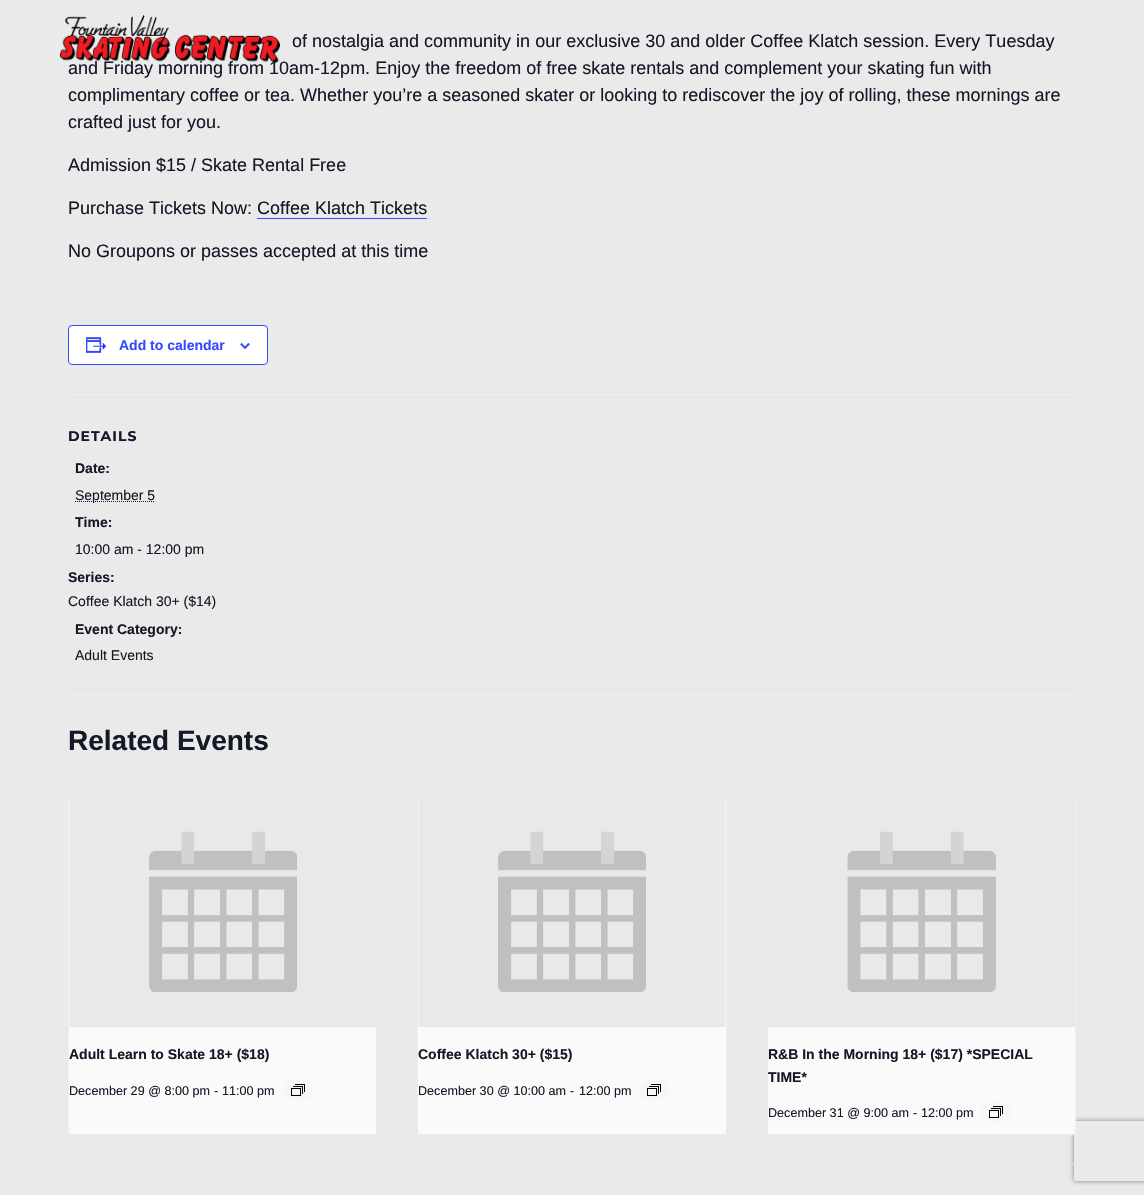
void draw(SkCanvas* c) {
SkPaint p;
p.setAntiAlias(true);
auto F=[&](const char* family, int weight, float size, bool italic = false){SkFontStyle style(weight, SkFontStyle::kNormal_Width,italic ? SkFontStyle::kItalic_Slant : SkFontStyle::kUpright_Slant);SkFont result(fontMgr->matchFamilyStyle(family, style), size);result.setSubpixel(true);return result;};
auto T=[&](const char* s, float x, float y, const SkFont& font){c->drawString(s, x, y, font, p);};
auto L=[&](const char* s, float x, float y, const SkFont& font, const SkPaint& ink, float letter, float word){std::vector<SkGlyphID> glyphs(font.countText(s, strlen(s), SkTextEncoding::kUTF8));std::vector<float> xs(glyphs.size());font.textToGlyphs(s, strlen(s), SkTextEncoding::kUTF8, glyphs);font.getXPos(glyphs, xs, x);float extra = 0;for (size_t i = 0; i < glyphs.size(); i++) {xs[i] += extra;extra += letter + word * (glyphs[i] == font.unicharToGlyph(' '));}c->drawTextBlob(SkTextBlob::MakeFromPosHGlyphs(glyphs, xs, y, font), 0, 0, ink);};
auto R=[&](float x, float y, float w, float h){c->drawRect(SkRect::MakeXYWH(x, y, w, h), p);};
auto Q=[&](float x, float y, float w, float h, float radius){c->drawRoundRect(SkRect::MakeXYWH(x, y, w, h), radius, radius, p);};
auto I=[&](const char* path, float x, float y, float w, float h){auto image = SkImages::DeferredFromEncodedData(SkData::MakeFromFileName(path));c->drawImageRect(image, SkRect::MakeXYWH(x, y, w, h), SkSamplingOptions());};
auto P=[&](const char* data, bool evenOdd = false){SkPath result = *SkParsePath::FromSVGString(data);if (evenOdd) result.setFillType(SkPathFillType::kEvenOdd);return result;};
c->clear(0xffeaeaea);
auto f1 = F("Liberation Sans",400,18);
p.setColor(0xff141827);
T("and Friday morning from 10am-12pm. Enjoy the freedom of free skate rentals and complement your skating fun with",68,74,f1);
I("1.png",60,15,220,48);
T("of nostalgia and community in our exclusive 30 and older Coffee Klatch session. Every Tuesday",292,47,f1);
T("complimentary coffee or tea. Whether you’re a seasoned skater or looking to rediscover the joy of rolling, these mornings are",68,101,f1);
T("crafted just for you.",68,128,f1);
T("Admission $15 / Skate Rental Free",68,171,f1);
T("Purchase Tickets Now: Coffee Klatch Tickets",68,214,f1);
p.setColor(0xff334aff);
R(257,218,170,1);
p.setColor(0xff141827);
T("No Groupons or passes accepted at this time",68,257,f1);
p.setColor(0xffffffff);
c->drawRoundRect(SkRect::MakeXYWH(68.5,325.5,199,39),3.5,3.5,p);
p.setStroke(true);
p.setStrokeWidth(1);
p.setColor(0xff334aff);
c->drawRoundRect(SkRect::MakeXYWH(68.5,325.5,199,39),3.5,3.5,p);
I("2.png",86,337,21,16);
auto f2 = F("Liberation Sans",700,14);
p.setStroke(false);
T("Add to calendar",119,350,f2);
I("3.png",240,343,10,6);
p.setColor(0xffe4e4e4);
R(68,397,1008,1);
auto f3 = F("Montserrat",700,14);
p.setColor(0xff141827);
L("DETAILS",68,441,f3,p,1,0);
T("Date:",75,473,f2);
p.setStroke(true);
p.setPathEffect(SkDashPathEffect::Make({{1,1}}, 0));
c->drawPath(P("M75 501.5h80"),p);
p.setPathEffect(nullptr);
auto f4 = F("Liberation Sans",400,14);
p.setStroke(false);
T("September 5",75,500,f4);
T("Time:",75,527,f2);
T("10:00 am - 12:00 pm",75,554,f4);
T("Series:",68,582,f2);
T("Coffee Klatch 30+ ($14)",68,606,f4);
T("Event Category:",75,634,f2);
T("Adult Events",75,660,f4);
p.setColor(0xffe4e4e4);
R(68,688,1008,1);
auto f5 = F("Liberation Sans",700,28);
p.setColor(0xff141827);
T("Related Events",68,750,f5);
p.setColor(0xfffafafa);
c->drawRoundRect(SkRect::MakeXYWH(68.5,796.5,308,338),2.5,2.5,p);
p.setStroke(true);
p.setColor(0xffeeeeee);
c->drawRoundRect(SkRect::MakeXYWH(68.5,796.5,308,338),2.5,2.5,p);
I("4.png",69,797,307,230);
p.setStroke(false);
p.setColor(0xff141827);
T("Adult Learn to Skate 18+ ($18)",69,1059,f2);
auto f6 = F("Liberation Sans",400,12.6);
T("December 29 @ 8:00 pm",69,1095,f6);
T("-",214,1095,f6);
T("11:00 pm",222,1095,f6);
p.setColor(0xfff7f6f6);
Q(283,1080,30,20,10);
I("5.png",291,1084,14,12);
p.setColor(0xfffafafa);
c->drawRoundRect(SkRect::MakeXYWH(417.5,796.5,309,338),2.5,2.5,p);
p.setStroke(true);
p.setColor(0xffeeeeee);
c->drawRoundRect(SkRect::MakeXYWH(417.5,796.5,309,338),2.5,2.5,p);
I("6.png",418,797,308,230);
p.setStroke(false);
p.setColor(0xff141827);
T("Coffee Klatch 30+ ($15)",418,1059,f2);
T("December 30 @ 10:00 am",418,1095,f6);
T("-",570,1095,f6);
T("12:00 pm",579,1095,f6);
p.setColor(0xfff7f6f6);
Q(639,1080,30,20,10);
I("5.png",647,1084,14,12);
c->save();
c->clipPath(P("M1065 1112h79v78h-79zm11 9h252c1 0 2 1 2 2v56c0 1-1 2-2 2h-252c-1 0-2-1-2-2v-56c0-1 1-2 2-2z",true),true);
p.setColor(0xff808080);
p.setMaskFilter(SkMaskFilter::MakeBlur(kNormal_SkBlurStyle, 2.5));
c->drawRoundRect(SkRect::MakeXYWH(1074,1121,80,60),2,2,p);
p.setMaskFilter(nullptr);
c->restore();
p.setColor(0xfffafafa);
c->drawRoundRect(SkRect::MakeXYWH(767.5,796.5,308,338),2.5,2.5,p);
p.setStroke(true);
p.setColor(0xffeeeeee);
c->drawRoundRect(SkRect::MakeXYWH(767.5,796.5,308,338),2.5,2.5,p);
I("7.png",768,797,307,230);
p.setStroke(false);
p.setColor(0xff141827);
T("R&B In the Morning 18+ ($17) *SPECIAL",768,1059,f2);
T("TIME*",768,1082,f2);
T("December 31 @ 9:00 am",768,1117,f6);
T("-",913,1117,f6);
T("12:00 pm",921,1117,f6);
p.setColor(0xfff7f6f6);
Q(981,1102,30,20,10);
I("5.png",989,1106,14,12);
p.setColor(0xffe4e4e4);
R(68,1163,1008,1);
}
